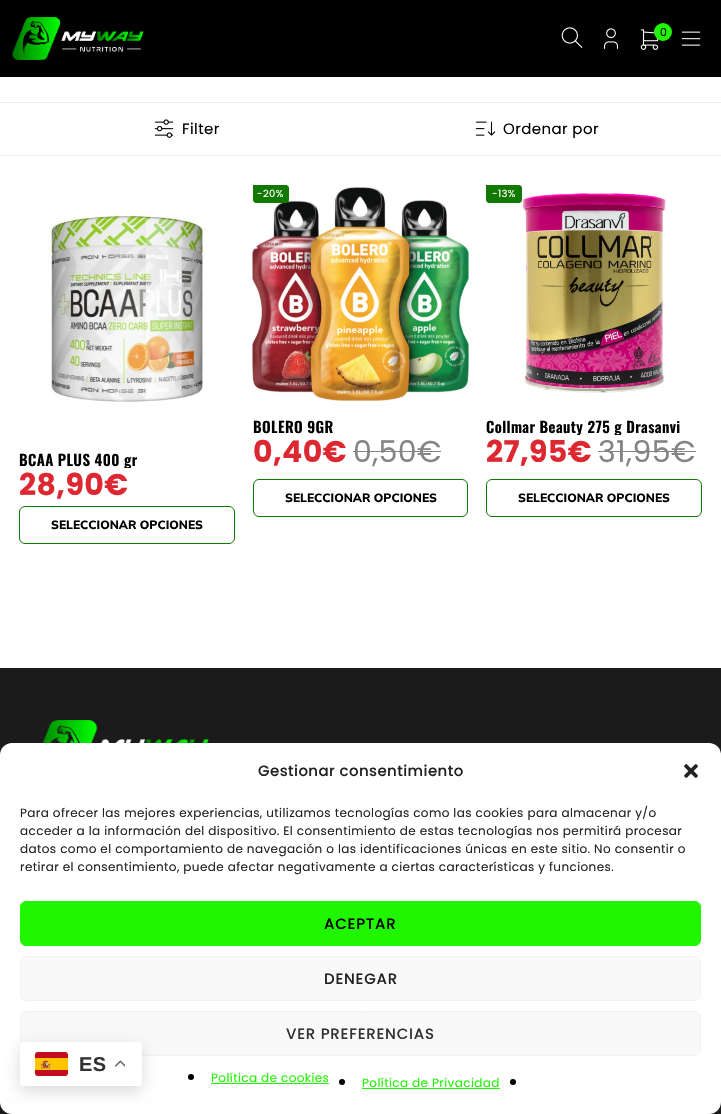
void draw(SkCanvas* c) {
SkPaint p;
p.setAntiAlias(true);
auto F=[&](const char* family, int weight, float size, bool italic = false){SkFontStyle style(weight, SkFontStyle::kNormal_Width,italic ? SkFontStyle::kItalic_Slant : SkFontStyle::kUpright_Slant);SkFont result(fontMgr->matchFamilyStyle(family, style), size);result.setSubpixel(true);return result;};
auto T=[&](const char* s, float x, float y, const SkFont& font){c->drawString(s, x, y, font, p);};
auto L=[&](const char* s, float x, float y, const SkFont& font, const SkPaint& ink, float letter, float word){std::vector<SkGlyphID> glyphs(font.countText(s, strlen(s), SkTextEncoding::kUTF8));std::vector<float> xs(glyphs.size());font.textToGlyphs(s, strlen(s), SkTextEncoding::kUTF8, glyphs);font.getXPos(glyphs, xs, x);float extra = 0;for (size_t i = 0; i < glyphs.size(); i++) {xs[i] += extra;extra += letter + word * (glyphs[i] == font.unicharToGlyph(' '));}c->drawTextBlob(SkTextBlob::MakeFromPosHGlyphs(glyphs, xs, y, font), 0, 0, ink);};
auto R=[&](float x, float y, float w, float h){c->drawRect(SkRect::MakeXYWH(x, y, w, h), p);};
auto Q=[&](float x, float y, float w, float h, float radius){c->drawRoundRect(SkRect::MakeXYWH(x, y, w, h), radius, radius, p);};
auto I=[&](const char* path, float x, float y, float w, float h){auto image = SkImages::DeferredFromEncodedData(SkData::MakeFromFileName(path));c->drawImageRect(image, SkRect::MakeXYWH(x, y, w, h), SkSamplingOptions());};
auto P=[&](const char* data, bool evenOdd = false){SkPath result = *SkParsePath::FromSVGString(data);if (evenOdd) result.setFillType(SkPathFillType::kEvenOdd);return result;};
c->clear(0xffffffff);
p.setColor(0xff000000);
R(0,0,721,77);
I("1.png",12,17,132,43);
I("2.png",561,27,22,21);
I("3.png",603,28,16,21);
I("4.png",640,29,19,21);
p.setColor(0xff1ff600);
c->drawCircle(663,32,9,p);
auto f1 = F("Poppins",400,11);
p.setColor(0xff000000);
T("0",660,36,f1);
I("5.png",681,31,20,15);
p.setColor(0xffebebeb);
R(0,102,721,1);
R(0,155,721,1);
I("6.png",154,119,20,19);
auto f2 = F("Poppins",400,15);
p.setColor(0xff000000);
L("Filter",182,134,f2,p,.4,0);
I("7.png",475,121,21,15);
L("Ordenar por",503,134,f2,p,.4,0);
I("8.png",45,211,165,191);
c->save();
c->clipRect(SkRect::MakeXYWH(19,450,216,18));
auto f3 = F("Oswald",600,15);
L("BCAA PLUS 400 gr",19,466,f3,p,.4,0);
c->restore();
auto f4 = F("Poppins",700,30);
p.setColor(0xffdd2831);
L("28,90€",19,495,f4,p,.4,0);
p.setStroke(true);
p.setStrokeWidth(1);
p.setColor(0xff117800);
c->drawRoundRect(SkRect::MakeXYWH(19.5,506.5,215,37),5.5,5.5,p);
auto f5 = F("Mulish",800,12);
p.setStroke(false);
p.setColor(0xff000000);
T("SELECCIONAR OPCIONES",51,529,f5);
I("9.png",251,187,218,214);
p.setColor(0xff117800);
c->drawPath(P("M253 185h33c1.5 0 3 1.5 3 3v12c0 1.5-1.5 3-3 3h-30c-1.5 0-3-1.5-3-3z"),p);
auto f6 = F("Poppins",400,10);
p.setColor(0xffffffff);
L("-20%",257,197,f6,p,.4,0);
p.setColor(0xff000000);
L("BOLERO 9GR",253,433,f3,p,.4,0);
p.setColor(0xffdd2831);
L("0,40€",253,462,f4,p,.4,0);
auto f7 = F("Poppins",400,30);
p.setColor(0xff848484);
L("0,50€",353,462,f7,p,.4,0);
R(353,451,88,1);
p.setStroke(true);
p.setColor(0xff117800);
c->drawRoundRect(SkRect::MakeXYWH(253.5,479.5,214,37),5.5,5.5,p);
p.setStroke(false);
p.setColor(0xff000000);
T("SELECCIONAR OPCIONES",285,502,f5);
p.setColor(0xff117800);
c->drawPath(P("M486 185h33c1.5 0 3 1.5 3 3v12c0 1.5-1.5 3-3 3h-30c-1.5 0-3-1.5-3-3z"),p);
p.setColor(0xffffffff);
L("-13%",492,197,f6,p,.4,0);
I("10.png",522,193,144,200);
c->save();
c->clipRect(SkRect::MakeXYWH(486,417,216,18));
p.setColor(0xff000000);
L("Collmar Beauty 275 g Drasanvi",486,433,f3,p,.4,0);
c->restore();
p.setColor(0xffdd2831);
L("27,95€",486,462,f4,p,.4,0);
p.setColor(0xff848484);
L("31,95€",598,462,f7,p,.4,0);
R(598,451,98,1);
p.setStroke(true);
p.setColor(0xff117800);
c->drawRoundRect(SkRect::MakeXYWH(486.5,479.5,215,37),5.5,5.5,p);
p.setStroke(false);
p.setColor(0xff000000);
T("SELECCIONAR OPCIONES",518,502,f5);
p.setColor(0xff1b1b1b);
R(0,668,721,446);
I("11.png",42,720,167,23);
p.setColor(0xffffffff);
Q(0,743,721,371,12);
auto f8 = F("Poppins",500,15);
p.setColor(0xff222222);
L("Gestionar consentimiento",258,776,f8,p,.4,0);
I("12.png",684,764,14,14);
auto f9 = F("Poppins",400,12);
L("Para ofrecer las mejores experiencias, utilizamos tecnologías como las cookies para almacenar y/o",20,817,f9,p,.4,0);
L("acceder a la información del dispositivo. El consentimiento de estas tecnologías nos permitirá procesar",20,835,f9,p,.4,0);
L("datos como el comportamiento de navegación o las identificaciones únicas en este sitio. No consentir o",20,853,f9,p,.4,0);
L("retirar el consentimiento, puede afectar negativamente a ciertas características y funciones.",20,871,f9,p,.4,0);
p.setColor(0xff1ff600);
c->drawRoundRect(SkRect::MakeXYWH(20.5,901.5,680,44),5.5,5.5,p);
p.setStroke(true);
c->drawRoundRect(SkRect::MakeXYWH(20.5,901.5,680,44),5.5,5.5,p);
p.setStroke(false);
p.setColor(0xff000000);
L("ACEPTAR",324,929,f8,p,.75,0);
p.setColor(0xfff9f9f9);
c->drawRoundRect(SkRect::MakeXYWH(20.5,956.5,680,44),5.5,5.5,p);
p.setStroke(true);
p.setColor(0xfff2f2f2);
c->drawRoundRect(SkRect::MakeXYWH(20.5,956.5,680,44),5.5,5.5,p);
p.setStroke(false);
p.setColor(0xff222222);
L("DENEGAR",324,984,f8,p,.75,0);
p.setColor(0xfff9f9f9);
c->drawRoundRect(SkRect::MakeXYWH(20.5,1011.5,680,44),5.5,5.5,p);
p.setStroke(true);
p.setColor(0xfff2f2f2);
c->drawRoundRect(SkRect::MakeXYWH(20.5,1011.5,680,44),5.5,5.5,p);
p.setStroke(false);
p.setColor(0xff333333);
L("VER PREFERENCIAS",286,1039,f8,p,.75,0);
p.setColor(0xff000000);
c->drawCircle(191,1077,3,p);
p.setColor(0xff1ff600);
L("Política de cookies",211,1082,f9,p,.4,0);
R(211,1083,118,1);
p.setColor(0xff000000);
c->drawCircle(342,1082,3,p);
p.setColor(0xff1ff600);
L("Política de Privacidad",362,1087,f9,p,.4,0);
R(362,1088,138,1);
p.setColor(0xff000000);
c->drawCircle(513,1082,3,p);
p.setColor(0x26000000);
p.setMaskFilter(SkMaskFilter::MakeBlur(kNormal_SkBlurStyle, 7.5));
c->drawRoundRect(SkRect::MakeXYWH(20,1047,122,44),2,2,p);
p.setMaskFilter(nullptr);
p.setColor(0xffffffff);
Q(20,1042,122,44,2);
I("13.png",35,1052,33,24);
auto f10 = F("Liberation Sans",700,20);
p.setColor(0xff333333);
L("ES",79,1071,f10,p,.4,0);
I("14.png",114,1060,11,7);
}
